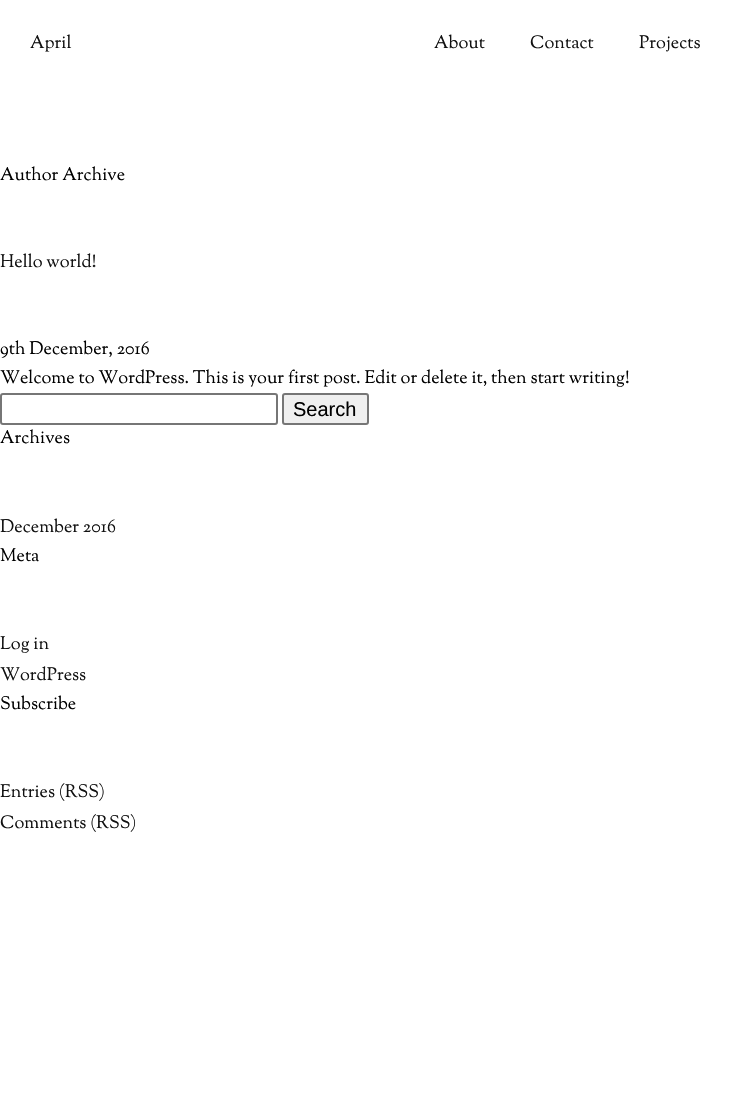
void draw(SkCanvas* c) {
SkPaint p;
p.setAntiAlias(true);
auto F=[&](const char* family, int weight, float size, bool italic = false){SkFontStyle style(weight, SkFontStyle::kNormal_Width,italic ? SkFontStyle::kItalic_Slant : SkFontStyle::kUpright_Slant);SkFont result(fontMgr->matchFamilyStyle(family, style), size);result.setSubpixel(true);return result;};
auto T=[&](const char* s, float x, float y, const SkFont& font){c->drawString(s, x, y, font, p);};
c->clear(0xffffffff);
auto f1 = F("Sorts Mill Goudy",400,18);
p.setColor(0xff111111);
T("April",30,48,f1);
T("About",434,48,f1);
T("Contact",530,48,f1);
T("Projects",639,48,f1);
p.setColor(0xff000000);
T("Author Archive",0,180,f1);
p.setColor(0xff111111);
T("Hello world!",0,267,f1);
p.setColor(0xff000000);
T("9th December, 2016",0,354,f1);
T("Welcome to WordPress. This is your first post. Edit or delete it, then start writing!",0,383,f1);
p.setStroke(true);
p.setStrokeWidth(2);
p.setColor(0xff767676);
c->drawRoundRect(SkRect::MakeXYWH(1,394,276,30),2,2,p);
p.setStroke(false);
p.setColor(0xffefefef);
c->drawRoundRect(SkRect::MakeXYWH(283,394,85,30),2,2,p);
p.setStroke(true);
p.setColor(0xff767676);
c->drawRoundRect(SkRect::MakeXYWH(283,394,85,30),2,2,p);
auto f2 = F("Liberation Sans",400,20);
p.setStroke(false);
p.setColor(0xff000000);
T("Search",293,416,f2);
T("Archives",0,443,f1);
p.setColor(0xff111111);
T("December 2016",0,532,f1);
p.setColor(0xff000000);
T("Meta",0,561,f1);
p.setColor(0xff111111);
T("Log in",0,649,f1);
T("WordPress",0,680,f1);
p.setColor(0xff000000);
T("Subscribe",0,709,f1);
p.setColor(0xff111111);
T("Entries (RSS)",0,797,f1);
T("Comments (RSS)",0,828,f1);
}
